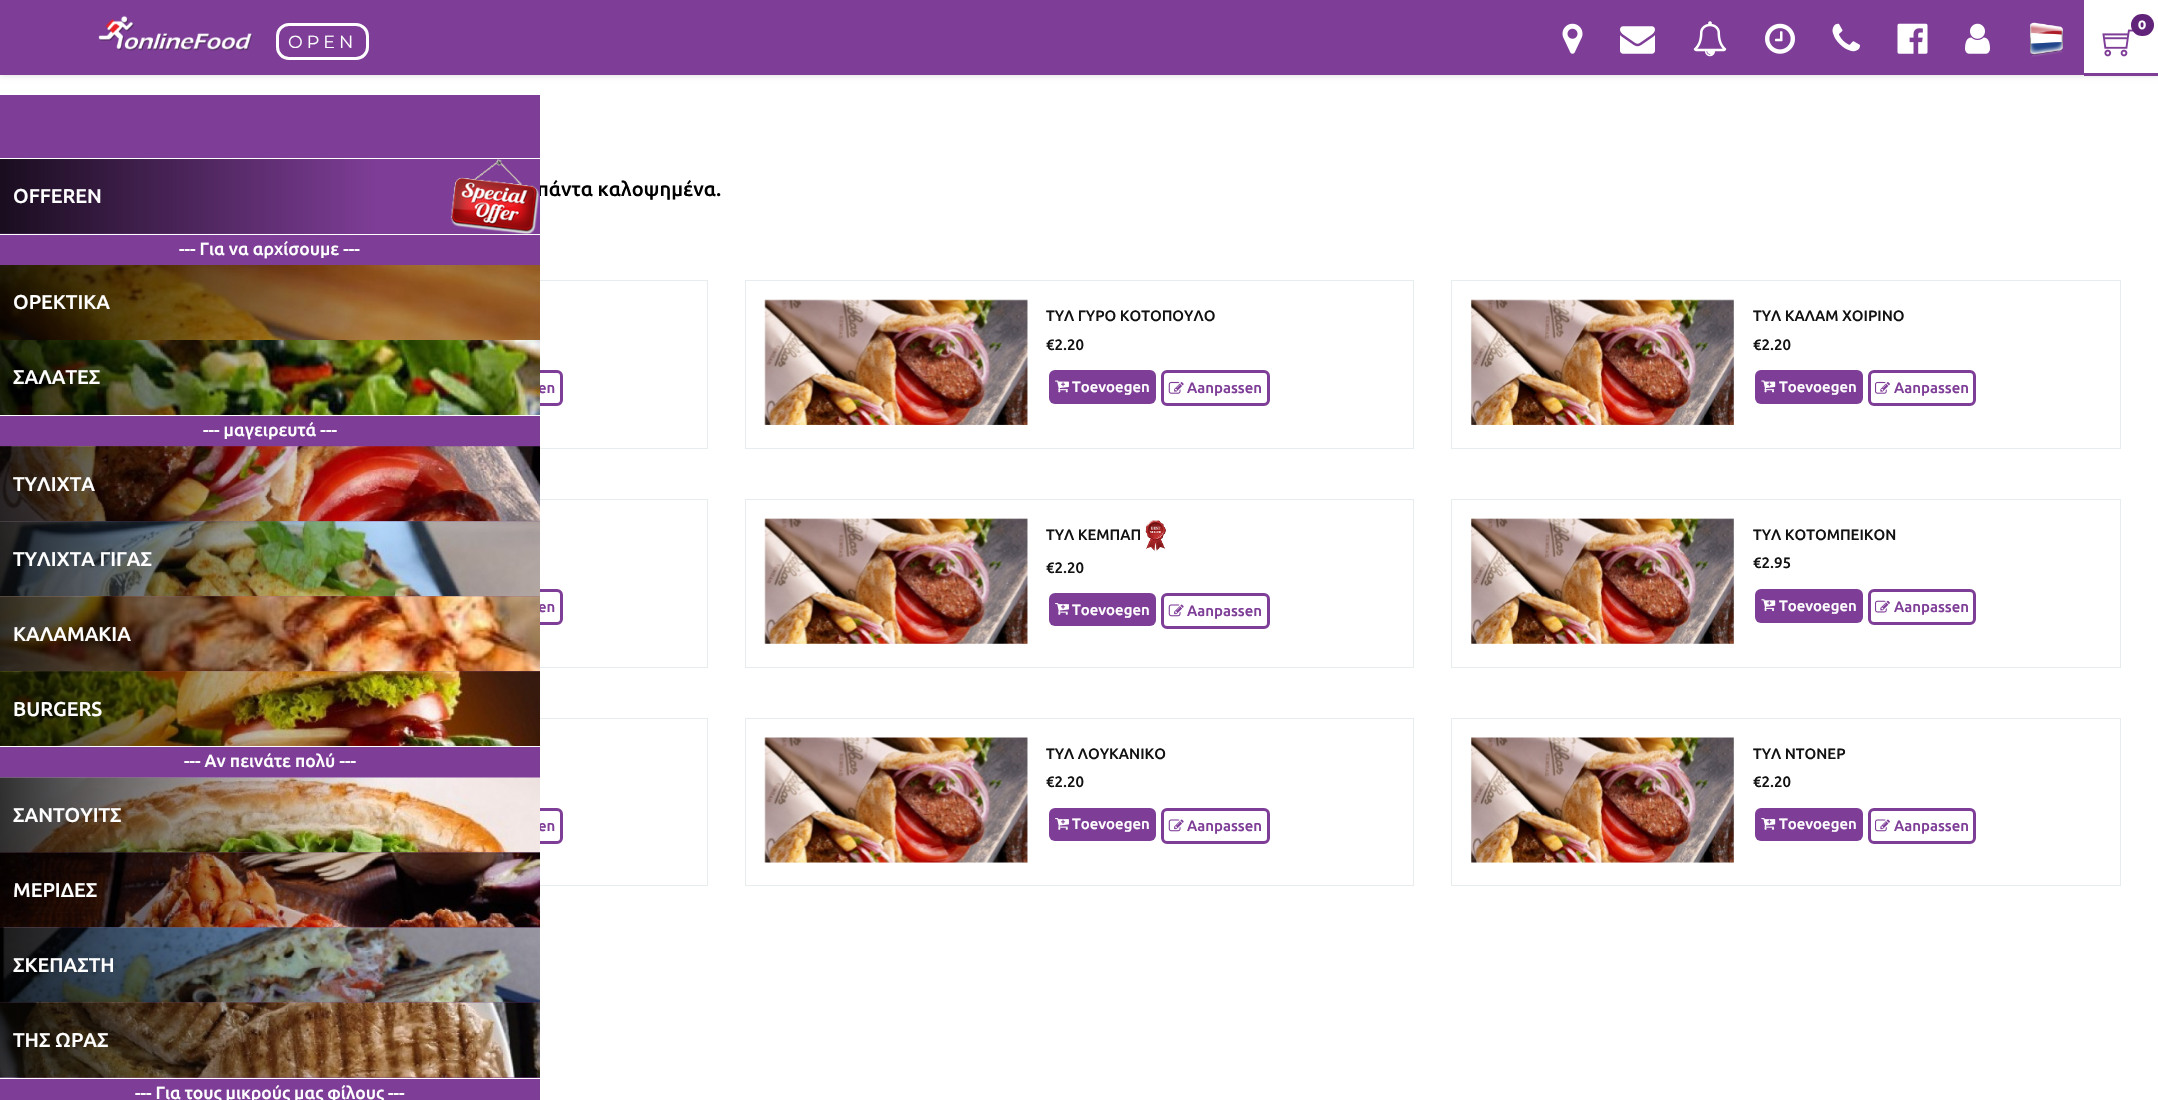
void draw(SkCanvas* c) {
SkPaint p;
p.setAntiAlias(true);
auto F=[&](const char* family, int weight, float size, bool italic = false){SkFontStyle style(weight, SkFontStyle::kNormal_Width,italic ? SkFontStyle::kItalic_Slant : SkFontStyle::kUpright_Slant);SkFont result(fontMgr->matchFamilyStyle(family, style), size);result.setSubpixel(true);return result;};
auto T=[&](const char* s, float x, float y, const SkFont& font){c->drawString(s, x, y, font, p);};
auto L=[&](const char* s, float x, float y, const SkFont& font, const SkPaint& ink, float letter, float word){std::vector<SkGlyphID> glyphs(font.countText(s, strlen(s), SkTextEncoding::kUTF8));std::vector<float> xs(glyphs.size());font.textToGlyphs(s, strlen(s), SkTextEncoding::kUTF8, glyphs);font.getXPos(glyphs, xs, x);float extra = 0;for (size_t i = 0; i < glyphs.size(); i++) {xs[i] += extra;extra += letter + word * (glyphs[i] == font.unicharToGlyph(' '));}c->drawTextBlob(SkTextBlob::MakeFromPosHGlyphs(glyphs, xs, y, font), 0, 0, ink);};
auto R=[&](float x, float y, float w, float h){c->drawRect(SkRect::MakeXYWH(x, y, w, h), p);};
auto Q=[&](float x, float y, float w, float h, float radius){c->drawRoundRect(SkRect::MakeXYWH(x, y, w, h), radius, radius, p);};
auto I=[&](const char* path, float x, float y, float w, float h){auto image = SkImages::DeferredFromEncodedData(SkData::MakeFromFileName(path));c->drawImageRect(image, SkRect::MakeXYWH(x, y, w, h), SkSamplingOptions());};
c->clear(0xffffffff);
p.setColor(0x26000000);
p.setMaskFilter(SkMaskFilter::MakeBlur(kNormal_SkBlurStyle, 3));
c->drawRect(SkRect::MakeXYWH(0,0,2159,75),p);
p.setMaskFilter(nullptr);
p.setColor(0xff7e3d97);
R(0,0,2084,75);
I("1.png",98,15,155,36);
I("2.png",1562,23,21,31);
I("3.png",1620,26,35,28);
I("4.png",1693,21,34,36);
I("5.png",1765,23,30,31);
I("6.png",1832,23,28,29);
I("7.png",1897,23,31,31);
I("8.png",1965,23,25,31);
I("9.png",2030,22,33,35);
p.setColor(0xffffffff);
R(2084,0,74,73);
p.setColor(0xff7e3d97);
R(2084,73,74,3);
I("10.png",2102,29,32,28);
p.setColor(0xff612279);
Q(2131,14,23,22,11);
auto f1 = F("Montserrat",700,12);
p.setColor(0xffffffff);
T("0",2138,29,f1);
p.setStroke(true);
p.setStrokeWidth(3);
c->drawRoundRect(SkRect::MakeXYWH(277.5,24.5,90,34),11.5,11.5,p);
auto f2 = F("Montserrat",400,17.5);
p.setStroke(false);
L("OPEN",288,48,f2,p,4,0);
auto f3 = F("Ubuntu",500,20);
p.setColor(0xff000000);
T("πάντα καλοψημένα.",537,196,f3);
p.setStroke(true);
p.setStrokeWidth(1);
p.setColor(0xffe7ecef);
c->drawRect(SkRect::MakeXYWH(38.5,280.5,669,168),p);
p.setStrokeWidth(3);
p.setColor(0xff7e3d97);
c->drawRoundRect(SkRect::MakeXYWH(455.5,371.5,106,33),4.5,4.5,p);
p.setStrokeWidth(1);
p.setColor(0xffe7ecef);
c->drawRect(SkRect::MakeXYWH(38.5,499.5,669,168),p);
p.setStrokeWidth(3);
p.setColor(0xff7e3d97);
c->drawRoundRect(SkRect::MakeXYWH(455.5,590.5,106,33),4.5,4.5,p);
p.setStrokeWidth(1);
p.setColor(0xffe7ecef);
c->drawRect(SkRect::MakeXYWH(38.5,718.5,669,167),p);
p.setStrokeWidth(3);
p.setColor(0xff7e3d97);
c->drawRoundRect(SkRect::MakeXYWH(455.5,809.5,106,33),4.5,4.5,p);
p.setStroke(false);
R(0,95,540,1005);
p.setColor(0xffffffff);
R(0,158,540,1);
I("11.png",0,159,540,75);
T("OFFEREN",13,203,f3);
R(0,234,540,1);
auto f4 = F("Ubuntu",500,17.5);
T("--- Για να αρχίσουμε ---",179,255,f4);
I("12.png",0,265,540,75);
T("ΟΡΕΚΤΙΚΑ",13,309,f3);
auto f5 = F("Ubuntu",500,15);
p.setColor(0xff7e3d97);
T("en",538,393,f5);
I("13.png",0,340,540,75);
p.setColor(0xffffffff);
T("ΣΑΛΑΤΕΣ",13,384,f3);
R(0,415,540,1);
T("--- μαγειρευτά ---",203,436,f4);
I("14.png",0,446,540,76);
T("ΤΥΛΙΧΤΑ",13,491,f3);
I("15.png",0,521,540,76);
T("ΤΥΛΙΧΤΑ ΓΙΓΑΣ",13,566,f3);
p.setColor(0xff7e3d97);
T("en",538,612,f5);
I("16.png",0,596,540,76);
p.setColor(0xffffffff);
T("ΚΑΛΑΜΑΚΙΑ",13,641,f3);
I("17.png",0,671,540,75);
T("BURGERS",13,716,f3);
R(0,746,540,1);
T("--- Αν πεινάτε πολύ ---",184,767,f4);
p.setColor(0xff7e3d97);
T("en",538,831,f5);
I("18.png",0,777,540,76);
p.setColor(0xffffffff);
T("ΣΑΝΤΟΥΙΤΣ",13,822,f3);
I("19.png",0,852,540,76);
T("ΜΕΡΙΔΕΣ",13,897,f3);
I("20.png",0,927,540,76);
T("ΣΚΕΠΑΣΤΗ",13,972,f3);
I("21.png",0,1002,540,76);
T("ΤΗΣ ΩΡΑΣ",13,1047,f3);
R(0,1078,540,1);
T("--- Για τους μικρούς μας φίλους ---",135,1099,f4);
p.setStroke(true);
p.setStrokeWidth(1);
p.setColor(0xffe7ecef);
c->drawRect(SkRect::MakeXYWH(745.5,280.5,668,168),p);
I("22.png",764,299,264,126);
p.setStroke(false);
p.setColor(0xff121212);
T("ΤΥΛ ΓΥΡΟ ΚΟΤΟΠΟΥΛΟ",1046,321,f5);
T("€2.20",1046,350,f5);
p.setColor(0xff7e3d97);
Q(1049,370,107,34,6);
I("23.png",1055,380,14,13);
p.setColor(0xffffffff);
T("Toevoegen",1072,392,f5);
p.setStroke(true);
p.setStrokeWidth(3);
p.setColor(0xff7e3d97);
c->drawRoundRect(SkRect::MakeXYWH(1162.5,371.5,106,33),4.5,4.5,p);
I("24.png",1168,381,16,13);
p.setStroke(false);
T("Aanpassen",1187,393,f5);
p.setStroke(true);
p.setStrokeWidth(1);
p.setColor(0xffe7ecef);
c->drawRect(SkRect::MakeXYWH(1451.5,280.5,669,168),p);
I("25.png",1471,299,263,126);
p.setStroke(false);
p.setColor(0xff121212);
T("ΤΥΛ ΚΑΛΑΜ ΧΟΙΡΙΝΟ",1753,321,f5);
T("€2.20",1753,350,f5);
p.setColor(0xff7e3d97);
Q(1755,370,108,34,6);
I("26.png",1761,380,15,13);
p.setColor(0xffffffff);
T("Toevoegen",1779,392,f5);
p.setStroke(true);
p.setStrokeWidth(3);
p.setColor(0xff7e3d97);
c->drawRoundRect(SkRect::MakeXYWH(1869.5,371.5,105,33),4.5,4.5,p);
I("27.png",1875,381,15,13);
p.setStroke(false);
T("Aanpassen",1894,393,f5);
p.setStroke(true);
p.setStrokeWidth(1);
p.setColor(0xffe7ecef);
c->drawRect(SkRect::MakeXYWH(745.5,499.5,668,168),p);
I("28.png",764,518,264,126);
p.setStroke(false);
p.setColor(0xff121212);
T("ΤΥΛ ΚΕΜΠΑΠ",1046,540,f5);
I("29.png",1145,520,21,31);
T("€2.20",1046,573,f5);
p.setColor(0xff7e3d97);
Q(1049,593,107,33,6);
I("30.png",1055,603,14,12);
p.setColor(0xffffffff);
T("Toevoegen",1072,615,f5);
p.setStroke(true);
p.setStrokeWidth(3);
p.setColor(0xff7e3d97);
c->drawRoundRect(SkRect::MakeXYWH(1162.5,594.5,106,33),4.5,4.5,p);
I("31.png",1168,604,16,13);
p.setStroke(false);
T("Aanpassen",1187,616,f5);
p.setStroke(true);
p.setStrokeWidth(1);
p.setColor(0xffe7ecef);
c->drawRect(SkRect::MakeXYWH(1451.5,499.5,669,168),p);
I("32.png",1471,518,263,126);
p.setStroke(false);
p.setColor(0xff121212);
T("ΤΥΛ ΚΟΤΟΜΠΕΙΚΟΝ",1753,540,f5);
T("€2.95",1753,568,f5);
p.setColor(0xff7e3d97);
Q(1755,589,108,34,6);
I("33.png",1761,599,15,13);
p.setColor(0xffffffff);
T("Toevoegen",1779,611,f5);
p.setStroke(true);
p.setStrokeWidth(3);
p.setColor(0xff7e3d97);
c->drawRoundRect(SkRect::MakeXYWH(1869.5,590.5,105,33),4.5,4.5,p);
I("34.png",1875,600,15,13);
p.setStroke(false);
T("Aanpassen",1894,612,f5);
p.setStroke(true);
p.setStrokeWidth(1);
p.setColor(0xffe7ecef);
c->drawRect(SkRect::MakeXYWH(745.5,718.5,668,167),p);
I("35.png",764,737,264,126);
p.setStroke(false);
p.setColor(0xff121212);
T("ΤΥΛ ΛΟΥΚΑΝΙΚΟ",1046,759,f5);
T("€2.20",1046,787,f5);
p.setColor(0xff7e3d97);
Q(1049,808,107,33,6);
I("30.png",1055,818,14,12);
p.setColor(0xffffffff);
T("Toevoegen",1072,829,f5);
p.setStroke(true);
p.setStrokeWidth(3);
p.setColor(0xff7e3d97);
c->drawRoundRect(SkRect::MakeXYWH(1162.5,809.5,106,33),4.5,4.5,p);
I("31.png",1168,819,16,13);
p.setStroke(false);
T("Aanpassen",1187,831,f5);
p.setStroke(true);
p.setStrokeWidth(1);
p.setColor(0xffe7ecef);
c->drawRect(SkRect::MakeXYWH(1451.5,718.5,669,167),p);
I("36.png",1471,737,263,126);
p.setStroke(false);
p.setColor(0xff121212);
T("ΤΥΛ ΝΤΟΝΕΡ",1753,759,f5);
T("€2.20",1753,787,f5);
p.setColor(0xff7e3d97);
Q(1755,808,108,33,6);
I("37.png",1761,818,15,12);
p.setColor(0xffffffff);
T("Toevoegen",1779,829,f5);
p.setStroke(true);
p.setStrokeWidth(3);
p.setColor(0xff7e3d97);
c->drawRoundRect(SkRect::MakeXYWH(1869.5,809.5,105,33),4.5,4.5,p);
I("38.png",1875,819,15,13);
p.setStroke(false);
T("Aanpassen",1894,831,f5);
}
